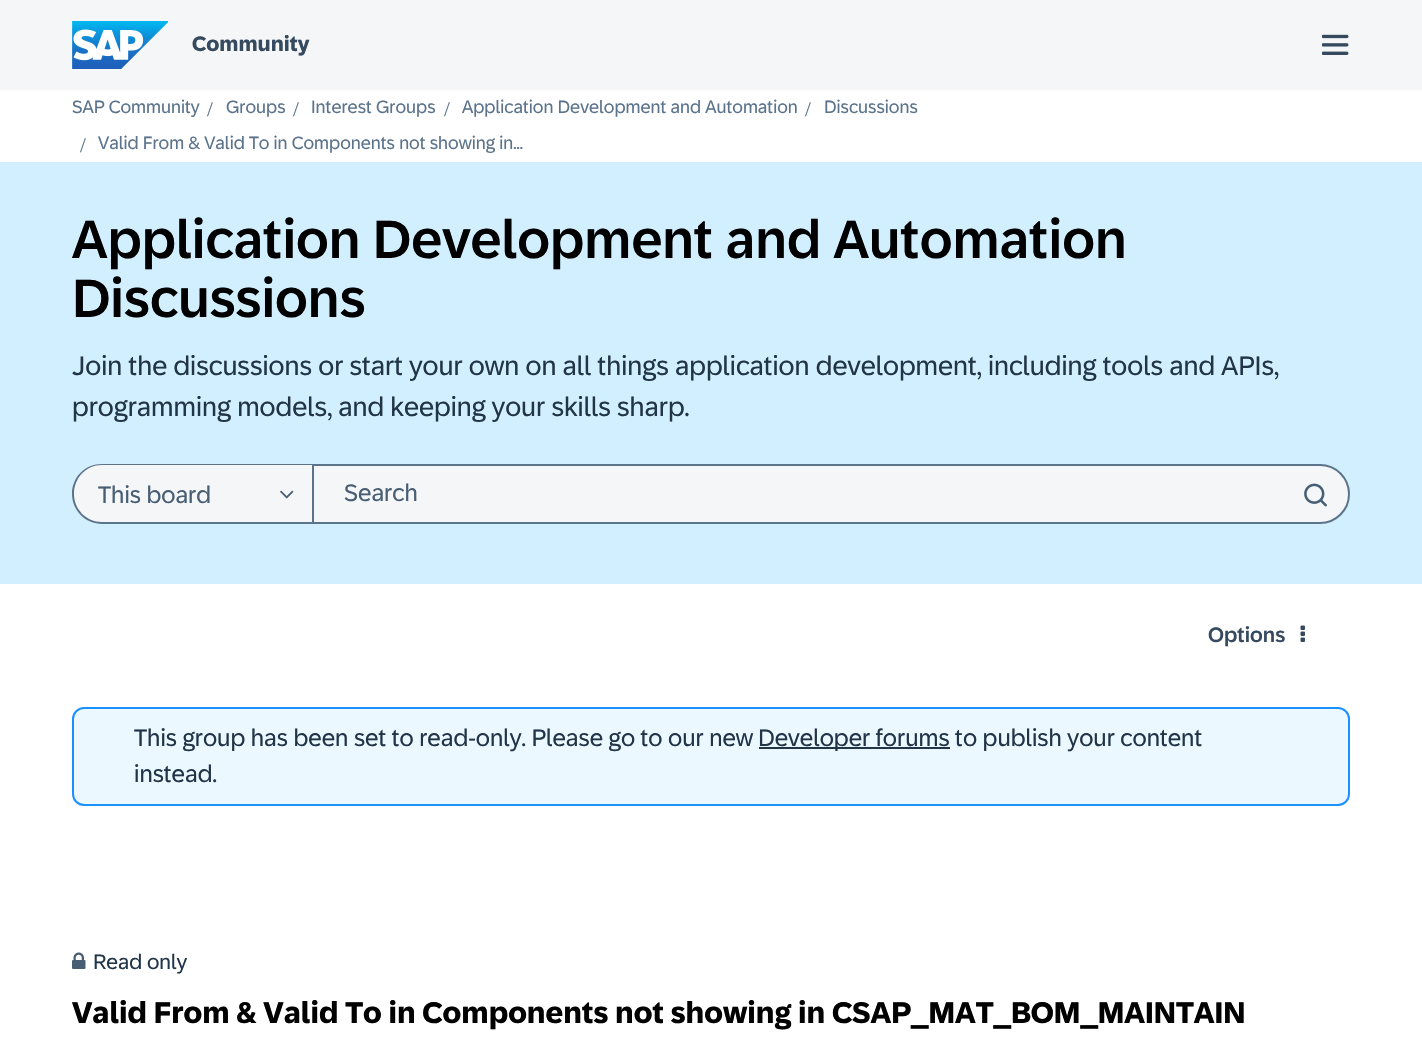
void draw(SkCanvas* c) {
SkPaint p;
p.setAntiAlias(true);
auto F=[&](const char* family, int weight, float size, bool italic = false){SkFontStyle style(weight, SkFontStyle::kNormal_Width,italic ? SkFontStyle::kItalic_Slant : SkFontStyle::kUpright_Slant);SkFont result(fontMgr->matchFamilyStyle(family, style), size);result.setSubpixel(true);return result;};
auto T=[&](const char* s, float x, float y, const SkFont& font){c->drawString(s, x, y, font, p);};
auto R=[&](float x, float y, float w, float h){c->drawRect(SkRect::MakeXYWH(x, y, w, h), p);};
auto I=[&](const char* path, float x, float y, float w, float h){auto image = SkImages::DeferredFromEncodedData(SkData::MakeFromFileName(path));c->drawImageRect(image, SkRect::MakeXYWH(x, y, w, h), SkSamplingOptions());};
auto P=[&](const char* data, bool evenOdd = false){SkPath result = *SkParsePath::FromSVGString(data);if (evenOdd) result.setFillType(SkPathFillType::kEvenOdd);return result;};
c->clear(0xffffffff);
p.setColor(0xfff5f6f7);
R(0,0,1422,90);
I("1.png",72,21,96,48);
auto f1 = F("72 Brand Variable",700,21);
p.setColor(0xff354a5f);
T("Community",192,51,f1);
I("2.png",1322,34,27,21);
auto f2 = F("72 Brand Variable",400,18);
p.setColor(0xff5b738b);
T("SAP Community",72,113,f2);
auto f3 = F("Liberation Serif",400,21);
T("/",207,116,f3);
T("Groups",226,113,f2);
T("/",293,116,f3);
T("Interest Groups",311,113,f2);
T("/",444,116,f3);
T("Application Development and Automation",462,113,f2);
T("/",805,116,f3);
T("Discussions",824,113,f2);
T("/",80,152,f3);
T("Valid From & Valid To in Components not showing in...",98,149,f2);
p.setColor(0xffd1efff);
R(0,162,1422,422);
auto f4 = F("72 Brand Variable",500,54);
p.setColor(0xff000000);
T("Application Development and Automation",72,258,f4);
T("Discussions",72,317,f4);
auto f5 = F("72 Brand Variable",400,27);
p.setColor(0xff223548);
T("Join the discussions or start your own on all things application development, including tools and APIs,",72,375,f5);
T("programming models, and keeping your skills sharp.",72,416,f5);
p.setColor(0xfff5f6f7);
c->drawPath(P("M102 464h210v60h-210c-16.5 0-30-13.5-30-30c0-16.5 13.5-30 30-30z"),p);
p.setColor(0xff5b738b);
c->drawPath(P("M102 464h210v60h-210c-17 0-30-14-30-30c0-17 13-30 30-30zm0 1h210v57h-210c-16 0-28-13-28-28c0-16 12-29 28-29z",true),p);
c->save();
c->clipRect(SkRect::MakeXYWH(98,477,178,36));
auto f6 = F("72 Brand Variable",400,24);
p.setColor(0xff475e75);
T("This board",98,503,f6);
c->restore();
I("3.png",280,490,14,9);
p.setColor(0xfff5f6f7);
c->drawPath(P("M313 465h1007c16 0 29 13 29 29c0 16-13 29-29 29h-1007z"),p);
p.setStroke(true);
p.setStrokeWidth(2);
p.setColor(0xff5b738b);
c->drawPath(P("M313 465h1007c16 0 29 13 29 29c0 16-13 29-29 29h-1007z"),p);
p.setStroke(false);
p.setColor(0xff475e75);
T("Search",344,501,f6);
I("4.png",1304,483,23,24);
auto f7 = F("72 Brand Variable",500,21);
p.setColor(0xff354a5f);
T("Options",1208,642,f7);
I("5.png",1300,625,5,17);
p.setColor(0xffebf8ff);
c->drawRoundRect(SkRect::MakeXYWH(73,708,1276,97),11,11,p);
p.setStroke(true);
p.setColor(0xff1b90ff);
c->drawRoundRect(SkRect::MakeXYWH(73,708,1276,97),11,11,p);
p.setStroke(false);
p.setColor(0xff223548);
T("This group has been set to read-only. Please go to our new",134,746,f6);
R(759,747,191,2);
T("Developer forums to publish your content",758,746,f6);
T("instead.",134,782,f6);
I("6.png",72,952,14,17);
auto f8 = F("72 Brand Variable",400,21);
T("Read only",93,969,f8);
auto f9 = F("72 Brand Variable",700,30);
p.setColor(0xff000000);
T("Valid From & Valid To in Components not showing in CSAP_MAT_BOM_MAINTAIN",72,1023,f9);
}
